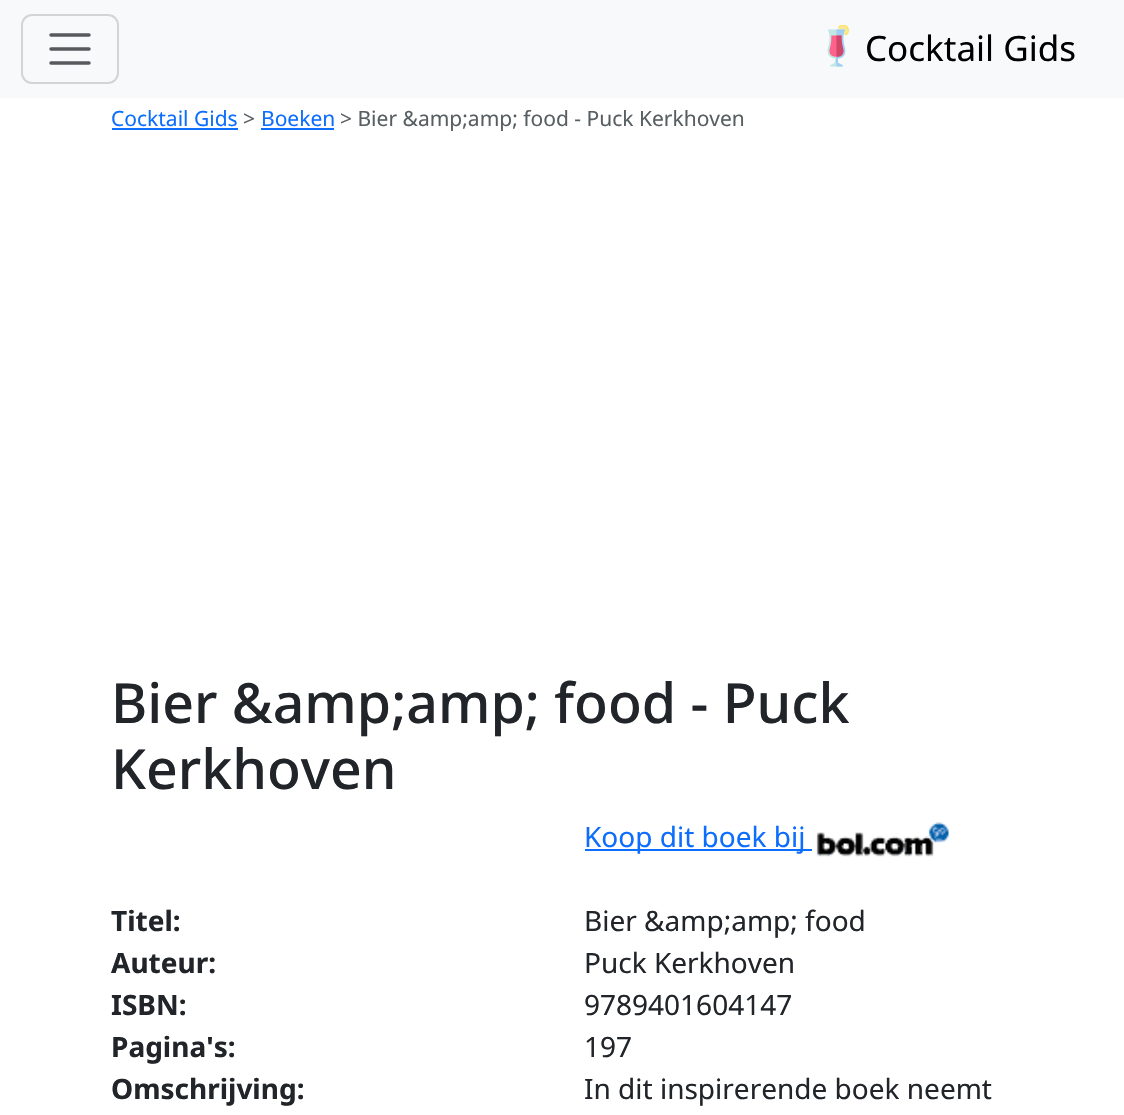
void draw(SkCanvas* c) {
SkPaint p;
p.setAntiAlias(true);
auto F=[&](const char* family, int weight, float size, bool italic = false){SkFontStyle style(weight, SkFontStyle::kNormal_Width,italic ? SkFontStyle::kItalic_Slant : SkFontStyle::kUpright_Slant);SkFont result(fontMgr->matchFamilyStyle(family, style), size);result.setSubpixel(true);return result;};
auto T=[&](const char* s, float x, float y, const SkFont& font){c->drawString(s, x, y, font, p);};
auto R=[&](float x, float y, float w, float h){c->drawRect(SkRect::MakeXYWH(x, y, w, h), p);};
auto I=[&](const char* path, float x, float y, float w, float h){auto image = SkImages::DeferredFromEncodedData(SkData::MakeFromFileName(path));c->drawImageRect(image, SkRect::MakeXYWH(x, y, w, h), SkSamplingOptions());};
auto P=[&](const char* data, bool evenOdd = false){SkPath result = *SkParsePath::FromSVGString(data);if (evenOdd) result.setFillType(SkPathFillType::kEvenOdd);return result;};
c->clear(0xffffffff);
p.setColor(0xfff8f9fa);
R(0,0,1124,98);
p.setStroke(true);
p.setStrokeWidth(2);
p.setColor(0xffd3d4d5);
c->drawRoundRect(SkRect::MakeXYWH(22,15,96,68),10,10,p);
p.setStrokeWidth(3.5);
p.setStrokeCap(SkPaint::kRound_Cap);
p.setColor(0xff575a5d);
c->drawPath(P("M51 35h38m-38 14h38m-38 14h38"),p);
I("1.png",827,25,22,42);
auto f1 = F("Noto Sans",400,35);
p.setStroke(false);
p.setColor(0xff000000);
T("Cocktail Gids",865,61,f1);
auto f2 = F("Noto Sans",400,21);
p.setColor(0xff0d6efd);
T("Cocktail Gids",111,126,f2);
R(112,128,126,2);
p.setColor(0xff585f62);
T(">",243,126,f2);
p.setColor(0xff0d6efd);
T("Boeken",261,126,f2);
R(261,128,73,2);
p.setColor(0xff585f62);
T("> Bier &amp;amp; food - Puck Kerkhoven",340,126,f2);
auto f3 = F("Noto Sans",500,55.4);
p.setColor(0xff212529);
T("Bier &amp;amp; food - Puck",111,723,f3);
T("Kerkhoven",111,789,f3);
p.setColor(0xff0d6efd);
R(585,849,227,2);
auto f4 = F("Noto Sans",400,28);
T("Koop dit boek bij",584,847,f4);
I("2.png",816,822,133,35);
auto f5 = F("Noto Sans",700,28);
p.setColor(0xff212529);
T("Titel:",111,931,f5);
T("Bier &amp;amp; food",584,931,f4);
T("Auteur:",111,973,f5);
T("Puck Kerkhoven",584,973,f4);
T("ISBN:",111,1015,f5);
T("9789401604147",584,1015,f4);
T("Pagina's:",111,1057,f5);
T("197",584,1057,f4);
T("Omschrijving:",111,1099,f5);
T("In dit inspirerende boek neemt",584,1099,f4);
}
